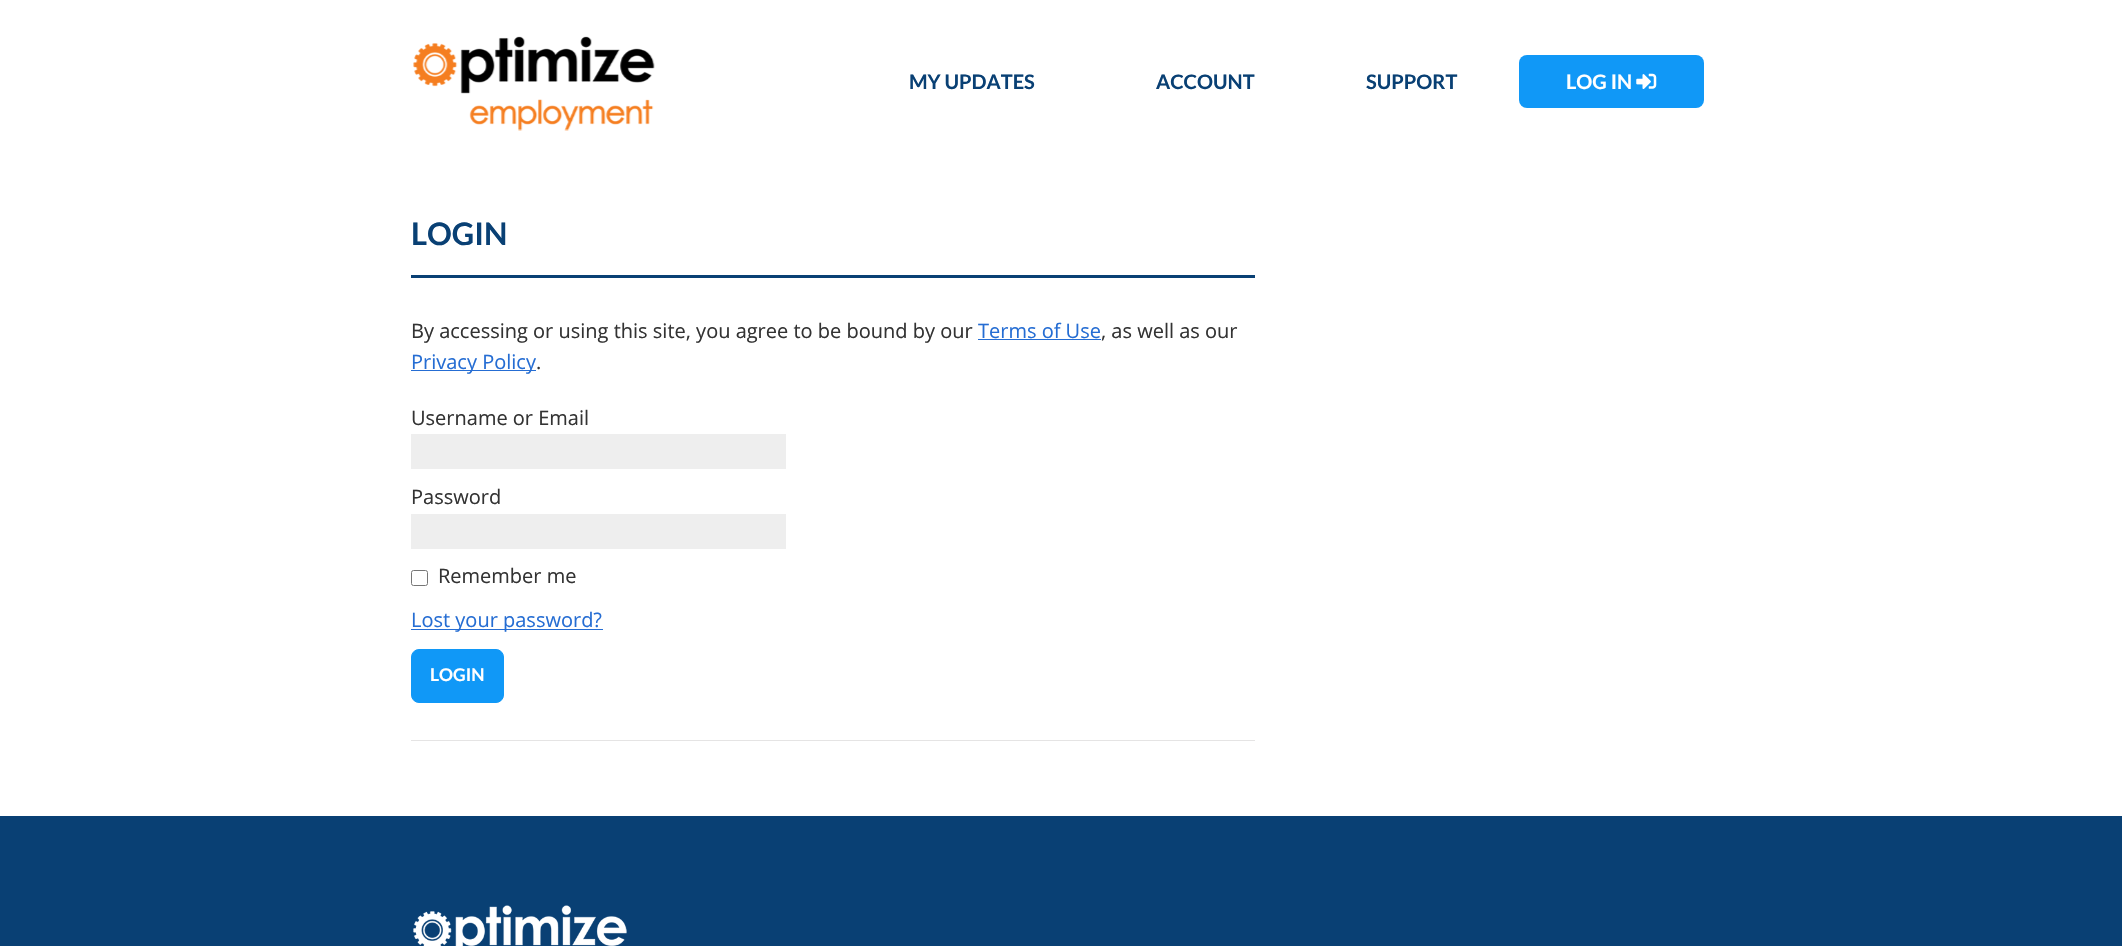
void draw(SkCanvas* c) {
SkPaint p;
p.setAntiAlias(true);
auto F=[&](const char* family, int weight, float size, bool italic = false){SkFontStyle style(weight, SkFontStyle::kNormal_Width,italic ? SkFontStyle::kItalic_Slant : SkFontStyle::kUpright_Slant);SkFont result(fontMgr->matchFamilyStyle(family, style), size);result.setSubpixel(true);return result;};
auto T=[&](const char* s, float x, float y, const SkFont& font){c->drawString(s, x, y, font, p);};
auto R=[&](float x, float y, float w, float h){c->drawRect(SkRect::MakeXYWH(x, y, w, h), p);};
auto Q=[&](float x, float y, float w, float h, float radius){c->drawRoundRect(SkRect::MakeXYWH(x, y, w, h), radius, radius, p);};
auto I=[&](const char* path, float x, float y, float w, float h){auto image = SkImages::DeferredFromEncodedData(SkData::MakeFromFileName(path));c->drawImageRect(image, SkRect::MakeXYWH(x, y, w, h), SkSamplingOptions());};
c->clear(0xffffffff);
I("1.png",413,36,242,95);
auto f1 = F("Lato",700,20);
p.setColor(0xff094074);
T("MY UPDATES",909,89,f1);
T("ACCOUNT",1156,89,f1);
T("SUPPORT",1366,89,f1);
p.setColor(0xff1098f7);
Q(1519,55,185,53,8);
p.setColor(0xffffffff);
T("LOG IN",1566,89,f1);
I("2.png",1636,73,21,16);
p.setColor(0xff094074);
R(411,275,844,3);
auto f2 = F("Lato",700,31);
T("LOGIN",411,245,f2);
auto f3 = F("Open Sans",400,20);
p.setColor(0xff333333);
T("By accessing or using this site, you agree to be bound by our",411,338,f3);
p.setColor(0xff256dd3);
T("Terms of Use",978,338,f3);
R(978,339,123,1);
p.setColor(0xff333333);
T(", as well as our",1101,338,f3);
p.setColor(0xff256dd3);
R(411,370,125,1);
T("Privacy Policy",411,369,f3);
p.setColor(0xff333333);
T(".",536,369,f3);
p.setColor(0xffe5e4e4);
R(411,740,844,1);
p.setColor(0xff333333);
T("Username or Email",411,425,f3);
p.setColor(0xffeeeeee);
R(411,434,375,35);
p.setColor(0xff333333);
T("Password",411,504,f3);
p.setColor(0xffeeeeee);
R(411,514,375,35);
p.setStroke(true);
p.setStrokeWidth(1);
p.setColor(0xff767676);
c->drawRoundRect(SkRect::MakeXYWH(411.5,570.5,16,15),2,2,p);
p.setStroke(false);
p.setColor(0xff333333);
T("Remember me",438,583,f3);
p.setColor(0xff256dd3);
R(411,629,192,1);
T("Lost your password?",411,627,f3);
p.setColor(0xff1098f7);
c->drawRoundRect(SkRect::MakeXYWH(411.5,649.5,92,53),7.5,7.5,p);
p.setStroke(true);
c->drawRoundRect(SkRect::MakeXYWH(411.5,649.5,92,53),7.5,7.5,p);
auto f4 = F("Lato",700,17.5);
p.setStroke(false);
p.setColor(0xffffffff);
T("LOGIN",430,681,f4);
p.setColor(0xff094074);
R(0,816,2122,130);
I("3.png",413,905,214,41);
}
